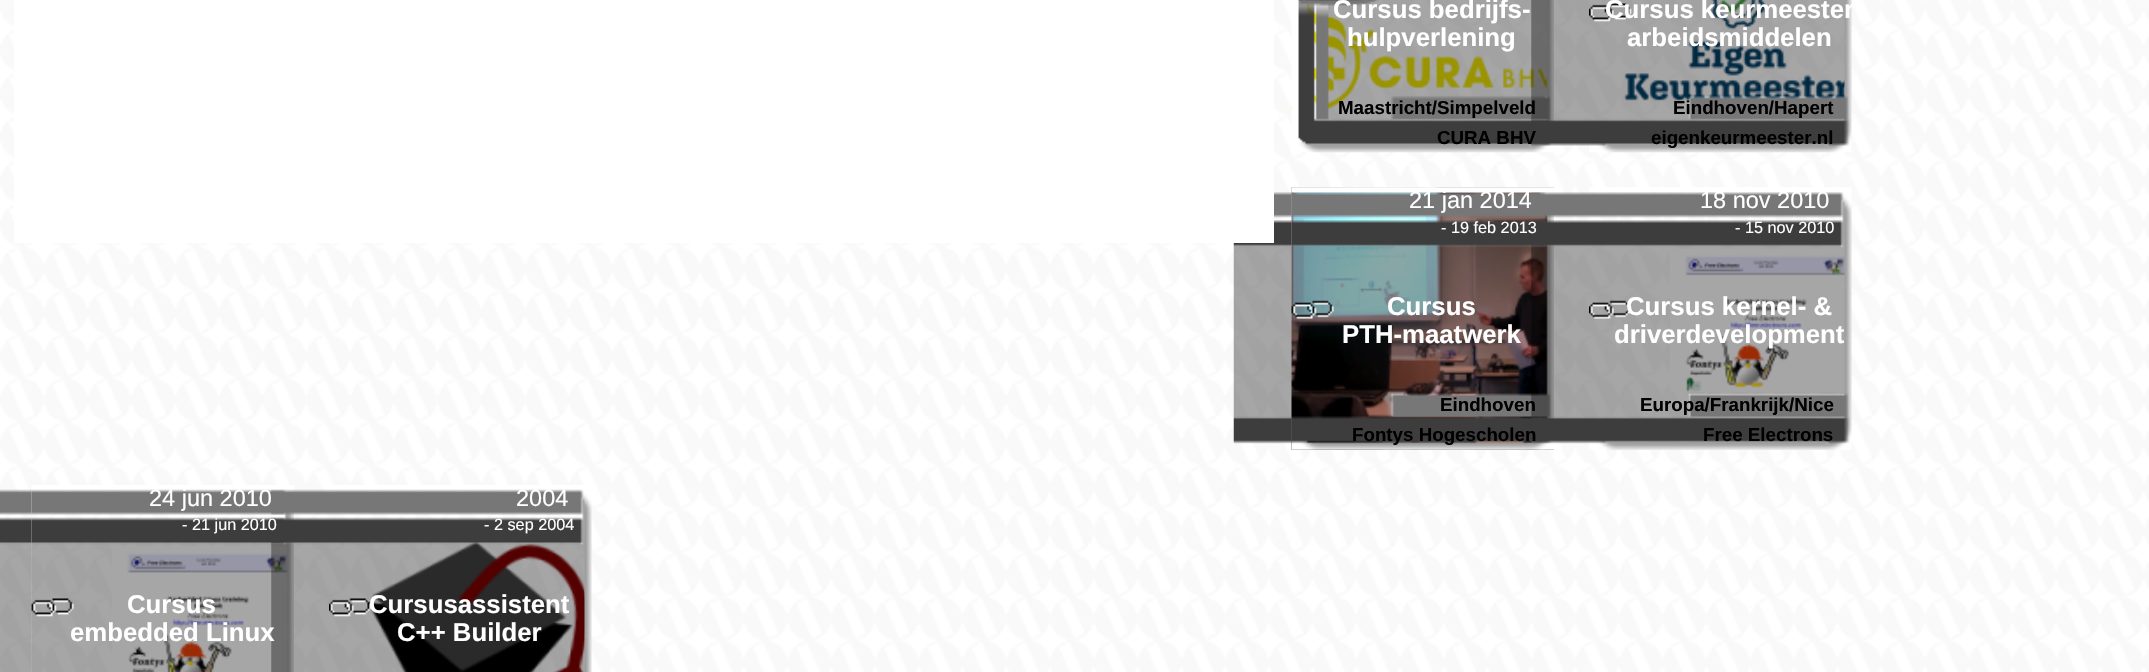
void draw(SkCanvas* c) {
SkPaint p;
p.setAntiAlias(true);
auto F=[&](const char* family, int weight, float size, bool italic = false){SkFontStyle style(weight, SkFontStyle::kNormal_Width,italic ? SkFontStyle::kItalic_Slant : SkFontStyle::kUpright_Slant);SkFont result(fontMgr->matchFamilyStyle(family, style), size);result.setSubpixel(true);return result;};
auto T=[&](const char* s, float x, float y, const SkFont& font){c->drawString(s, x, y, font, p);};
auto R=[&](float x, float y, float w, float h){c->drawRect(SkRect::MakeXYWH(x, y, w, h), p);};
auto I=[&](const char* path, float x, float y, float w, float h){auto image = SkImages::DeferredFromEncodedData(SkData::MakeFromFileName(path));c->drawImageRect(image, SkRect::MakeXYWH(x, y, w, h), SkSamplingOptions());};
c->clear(0xffffffff);
I("1.png",0,0,2149,672);
I("7.png",1291,187,263,263);
I("8.png",1291,187,263,263);
I("9.png",1233,192,59,252);
p.setColor(0xffffffff);
R(14,0,1260,243);
I("3.png",1291,3,257,108);
I("2.png",1291,0,263,153);
auto f1 = F("Liberation Sans",700,25.75);
T("Cursus bedrijfs-",1333,18,f1);
T("hulpverlening",1347,46,f1);
I("4.png",1531,0,58,146);
auto f2 = F("Liberation Sans",700,18.75);
p.setColor(0xff000000);
T("Maastricht/Simpelveld",1338,114,f2);
T("CURA BHV",1437,144,f2);
I("6.png",1623,0,229,101);
I("5.png",1589,0,263,153);
p.setColor(0xffffffff);
T("Cursus keurmeester",1605,18,f1);
T("arbeidsmiddelen",1627,46,f1);
p.setColor(0xff000000);
T("Eindhoven/Hapert",1673,114,f2);
T("eigenkeurmeester.nl",1651,144,f2);
auto f3 = F("Liberation Sans",400,23.5);
p.setColor(0xffffffff);
T("21 jan 2014",1409,208,f3);
I("11.png",1531,192,58,252);
auto f4 = F("Liberation Sans",400,16.25);
T("- 19 feb 2013",1441,233,f4);
T("Cursus",1387,315,f1);
T("PTH-maatwerk",1342,343,f1);
p.setColor(0xff000000);
T("Eindhoven",1440,411,f2);
T("Fontys Hogescholen",1352,441,f2);
I("12.png",1670,249,175,144);
I("10.png",1589,187,263,263);
p.setColor(0xffffffff);
T("18 nov 2010",1700,208,f3);
T("- 15 nov 2010",1735,233,f4);
T("Cursus kernel- &",1626,315,f1);
T("driverdevelopment",1614,343,f1);
p.setColor(0xff000000);
T("Europa/Frankrijk/Nice",1640,411,f2);
T("Free Electrons",1703,441,f2);
I("15.png",112,546,176,126);
I("14.png",31,485,263,187);
I("13.png",0,489,32,183);
p.setColor(0xffffffff);
T("24 jun 2010",149,506,f3);
I("16.png",271,489,58,183);
T("- 21 jun 2010",182,530,f4);
T("Cursus",127,613,f1);
T("embedded Linux",70,641,f1);
I("18.png",367,542,218,130);
I("17.png",329,485,263,187);
T("2004",516,506,f3);
T("- 2 sep 2004",484,530,f4);
T("Cursusassistent",369,613,f1);
T("C++ Builder",397,641,f1);
}
